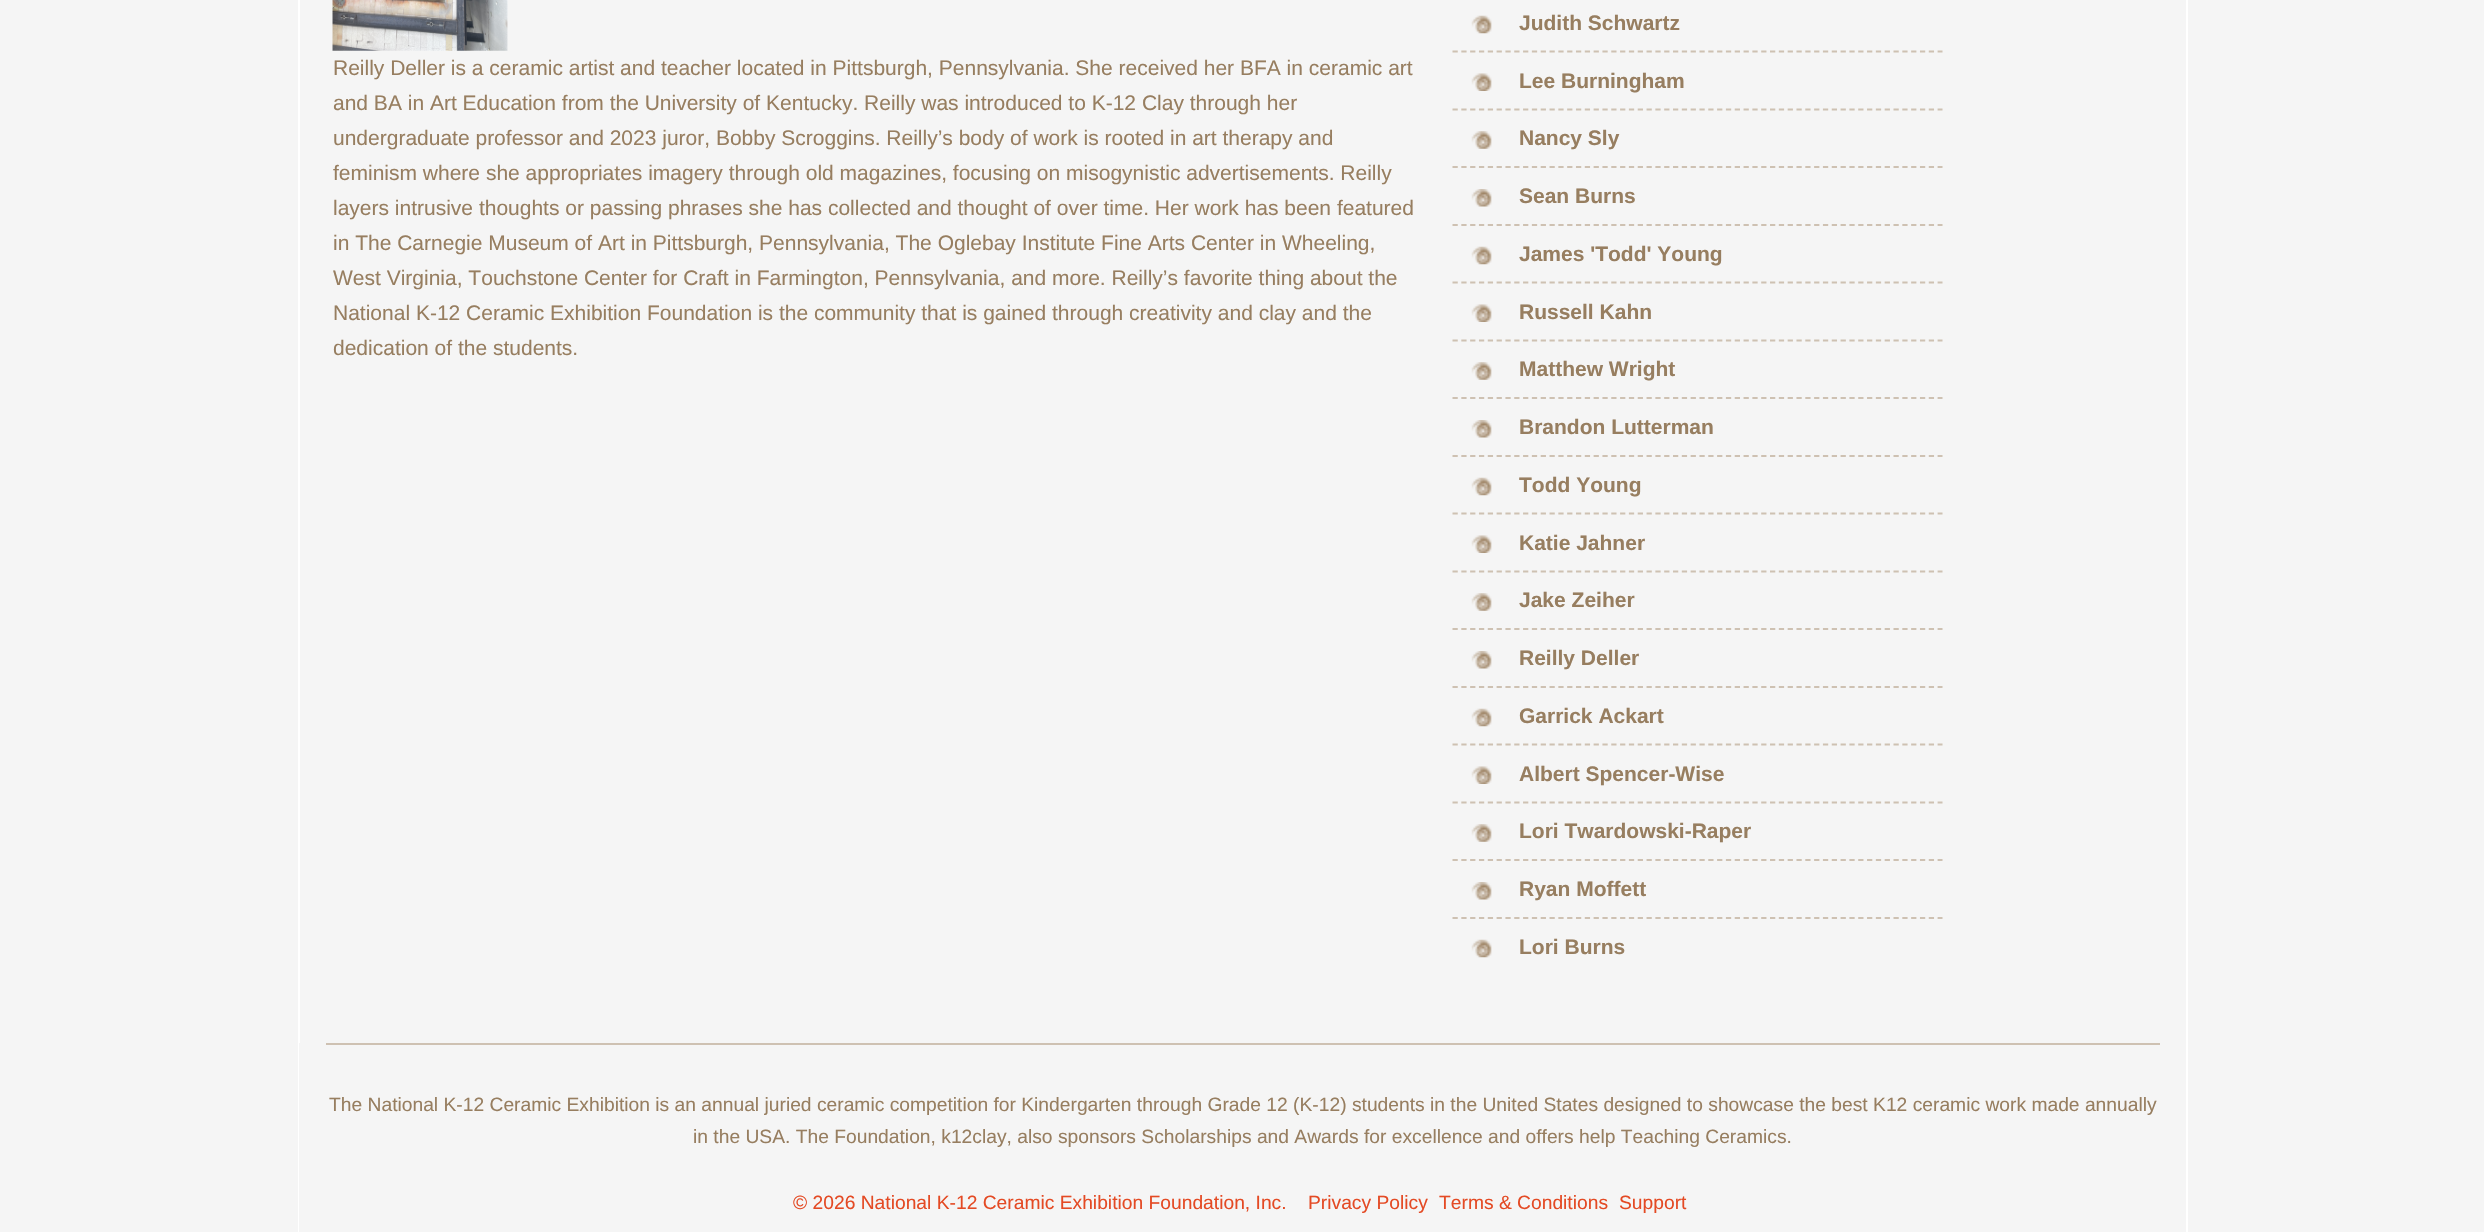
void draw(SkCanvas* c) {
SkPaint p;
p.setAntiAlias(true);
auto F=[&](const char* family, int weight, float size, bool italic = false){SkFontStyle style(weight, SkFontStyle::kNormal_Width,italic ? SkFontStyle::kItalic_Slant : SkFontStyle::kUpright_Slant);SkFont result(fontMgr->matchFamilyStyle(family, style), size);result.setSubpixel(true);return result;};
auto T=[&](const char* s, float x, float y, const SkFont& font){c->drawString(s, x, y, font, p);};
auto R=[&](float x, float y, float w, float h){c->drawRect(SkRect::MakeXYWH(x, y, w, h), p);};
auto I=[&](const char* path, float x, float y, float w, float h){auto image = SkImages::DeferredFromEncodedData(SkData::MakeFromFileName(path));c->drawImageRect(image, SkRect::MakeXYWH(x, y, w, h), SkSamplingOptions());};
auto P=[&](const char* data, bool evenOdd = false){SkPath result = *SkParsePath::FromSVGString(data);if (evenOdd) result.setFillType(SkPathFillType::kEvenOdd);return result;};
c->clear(0xfff5f5f5);
p.setColor(0xffffffff);
R(2186,0,2,1043);
R(298,0,2,1043);
I("1.png",332,0,176,51);
auto f1 = F("Liberation Sans",400,21);
p.setColor(0xff977e60);
T("Reilly Deller is a ceramic artist and teacher located in Pittsburgh, Pennsylvania. She received her BFA in ceramic art",333,75,f1);
T("and BA in Art Education from the University of Kentucky. Reilly was introduced to K-12 Clay through her",333,110,f1);
T("undergraduate professor and 2023 juror, Bobby Scroggins. Reilly’s body of work is rooted in art therapy and",333,145,f1);
T("feminism where she appropriates imagery through old magazines, focusing on misogynistic advertisements. Reilly",333,180,f1);
T("layers intrusive thoughts or passing phrases she has collected and thought of over time. Her work has been featured",333,215,f1);
T("in The Carnegie Museum of Art in Pittsburgh, Pennsylvania, The Oglebay Institute Fine Arts Center in Wheeling,",333,250,f1);
T("West Virginia, Touchstone Center for Craft in Farmington, Pennsylvania, and more. Reilly’s favorite thing about the",333,285,f1);
T("National K-12 Ceramic Exhibition Foundation is the community that is gained through creativity and clay and the",333,320,f1);
T("dedication of the students.",333,355,f1);
I("2.png",1471,15,21,19);
auto f2 = F("Liberation Sans",700,21);
T("Judith Schwartz",1519,30,f2);
I("3.png",1471,73,21,18);
p.setStroke(true);
p.setStrokeWidth(1.8);
p.setColor(0xffcec1b2);
p.setPathEffect(SkDashPathEffect::Make({{5.25f,3.57f}}, 0));
c->drawPath(P("M1452.5 51.5h490"),p);
p.setPathEffect(nullptr);
p.setStroke(false);
p.setColor(0xff977e60);
T("Lee Burningham",1519,88,f2);
I("4.png",1471,131,21,18);
p.setStroke(true);
p.setColor(0xffcec1b2);
p.setPathEffect(SkDashPathEffect::Make({{5.25f,3.57f}}, 0));
c->drawPath(P("M1452.5 109.5h490"),p);
p.setPathEffect(nullptr);
p.setStroke(false);
p.setColor(0xff977e60);
T("Nancy Sly",1519,145,f2);
I("5.png",1471,189,21,18);
p.setStroke(true);
p.setColor(0xffcec1b2);
p.setPathEffect(SkDashPathEffect::Make({{5.25f,3.57f}}, 0));
c->drawPath(P("M1452.5 167h490"),p);
p.setPathEffect(nullptr);
p.setStroke(false);
p.setColor(0xff977e60);
T("Sean Burns",1519,203,f2);
I("2.png",1471,246,21,19);
p.setStroke(true);
p.setColor(0xffcec1b2);
p.setPathEffect(SkDashPathEffect::Make({{5.25f,3.57f}}, 0));
c->drawPath(P("M1452.5 225h490"),p);
p.setPathEffect(nullptr);
p.setStroke(false);
p.setColor(0xff977e60);
T("James 'Todd' Young",1519,261,f2);
I("3.png",1471,304,21,18);
p.setStroke(true);
p.setColor(0xffcec1b2);
p.setPathEffect(SkDashPathEffect::Make({{5.25f,3.57f}}, 0));
c->drawPath(P("M1452.5 282.5h490"),p);
p.setPathEffect(nullptr);
p.setStroke(false);
p.setColor(0xff977e60);
T("Russell Kahn",1519,319,f2);
I("4.png",1471,362,21,18);
p.setStroke(true);
p.setColor(0xffcec1b2);
p.setPathEffect(SkDashPathEffect::Make({{5.25f,3.57f}}, 0));
c->drawPath(P("M1452.5 340.5h490"),p);
p.setPathEffect(nullptr);
p.setStroke(false);
p.setColor(0xff977e60);
T("Matthew Wright",1519,376,f2);
I("5.png",1471,420,21,18);
p.setStroke(true);
p.setColor(0xffcec1b2);
p.setPathEffect(SkDashPathEffect::Make({{5.25f,3.57f}}, 0));
c->drawPath(P("M1452.5 398h490"),p);
p.setPathEffect(nullptr);
p.setStroke(false);
p.setColor(0xff977e60);
T("Brandon Lutterman",1519,434,f2);
I("2.png",1471,477,21,19);
p.setStroke(true);
p.setColor(0xffcec1b2);
p.setPathEffect(SkDashPathEffect::Make({{5.25f,3.57f}}, 0));
c->drawPath(P("M1452.5 456h490"),p);
p.setPathEffect(nullptr);
p.setStroke(false);
p.setColor(0xff977e60);
T("Todd Young",1519,492,f2);
I("3.png",1471,535,21,18);
p.setStroke(true);
p.setColor(0xffcec1b2);
p.setPathEffect(SkDashPathEffect::Make({{5.25f,3.57f}}, 0));
c->drawPath(P("M1452.5 513.5h490"),p);
p.setPathEffect(nullptr);
p.setStroke(false);
p.setColor(0xff977e60);
T("Katie Jahner",1519,550,f2);
I("4.png",1471,593,21,18);
p.setStroke(true);
p.setColor(0xffcec1b2);
p.setPathEffect(SkDashPathEffect::Make({{5.25f,3.57f}}, 0));
c->drawPath(P("M1452.5 571.5h490"),p);
p.setPathEffect(nullptr);
p.setStroke(false);
p.setColor(0xff977e60);
T("Jake Zeiher",1519,607,f2);
I("5.png",1471,651,21,18);
p.setStroke(true);
p.setColor(0xffcec1b2);
p.setPathEffect(SkDashPathEffect::Make({{5.25f,3.57f}}, 0));
c->drawPath(P("M1452.5 629h490"),p);
p.setPathEffect(nullptr);
p.setStroke(false);
p.setColor(0xff977e60);
T("Reilly Deller",1519,665,f2);
I("2.png",1471,708,21,19);
p.setStroke(true);
p.setColor(0xffcec1b2);
p.setPathEffect(SkDashPathEffect::Make({{5.25f,3.57f}}, 0));
c->drawPath(P("M1452.5 687h490"),p);
p.setPathEffect(nullptr);
p.setStroke(false);
p.setColor(0xff977e60);
T("Garrick Ackart",1519,723,f2);
I("3.png",1471,766,21,18);
p.setStroke(true);
p.setColor(0xffcec1b2);
p.setPathEffect(SkDashPathEffect::Make({{5.25f,3.57f}}, 0));
c->drawPath(P("M1452.5 744.5h490"),p);
p.setPathEffect(nullptr);
p.setStroke(false);
p.setColor(0xff977e60);
T("Albert Spencer-Wise",1519,781,f2);
I("4.png",1471,824,21,18);
p.setStroke(true);
p.setColor(0xffcec1b2);
p.setPathEffect(SkDashPathEffect::Make({{5.25f,3.57f}}, 0));
c->drawPath(P("M1452.5 802.5h490"),p);
p.setPathEffect(nullptr);
p.setStroke(false);
p.setColor(0xff977e60);
T("Lori Twardowski-Raper",1519,838,f2);
I("5.png",1471,882,21,18);
p.setStroke(true);
p.setColor(0xffcec1b2);
p.setPathEffect(SkDashPathEffect::Make({{5.25f,3.57f}}, 0));
c->drawPath(P("M1452.5 860h490"),p);
p.setPathEffect(nullptr);
p.setStroke(false);
p.setColor(0xff977e60);
T("Ryan Moffett",1519,896,f2);
I("2.png",1471,939,21,19);
p.setStroke(true);
p.setColor(0xffcec1b2);
p.setPathEffect(SkDashPathEffect::Make({{5.25f,3.57f}}, 0));
c->drawPath(P("M1452.5 918h490"),p);
p.setPathEffect(nullptr);
p.setStroke(false);
p.setColor(0xff977e60);
T("Lori Burns",1519,954,f2);
p.setColor(0xffffffff);
c->drawPath(P("M298 1043h1890v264c0 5-4 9-9 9h-1873c-5 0-8-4-8-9zm1 0h1887v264c0 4-3 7-7 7h-1873c-4 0-7-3-7-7z",true),p);
p.setColor(0xffcec1b2);
R(326,1043,1834,2);
auto f3 = F("Liberation Sans",400,19.25);
p.setColor(0xff977e60);
T("The National K-12 Ceramic Exhibition is an annual juried ceramic competition for Kindergarten through Grade 12 (K-12) students in the United States designed to showcase the best K12 ceramic work made annually",329,1111,f3);
T("in the USA. The Foundation, k12clay, also sponsors Scholarships and Awards for excellence and offers help Teaching Ceramics.",693,1143,f3);
p.setColor(0xffe44a24);
T("© 2026 National K-12 Ceramic Exhibition Foundation, Inc.",793,1209,f3);
T("Privacy Policy",1308,1209,f3);
T("Terms & Conditions",1439,1209,f3);
T("Support",1619,1209,f3);
}
